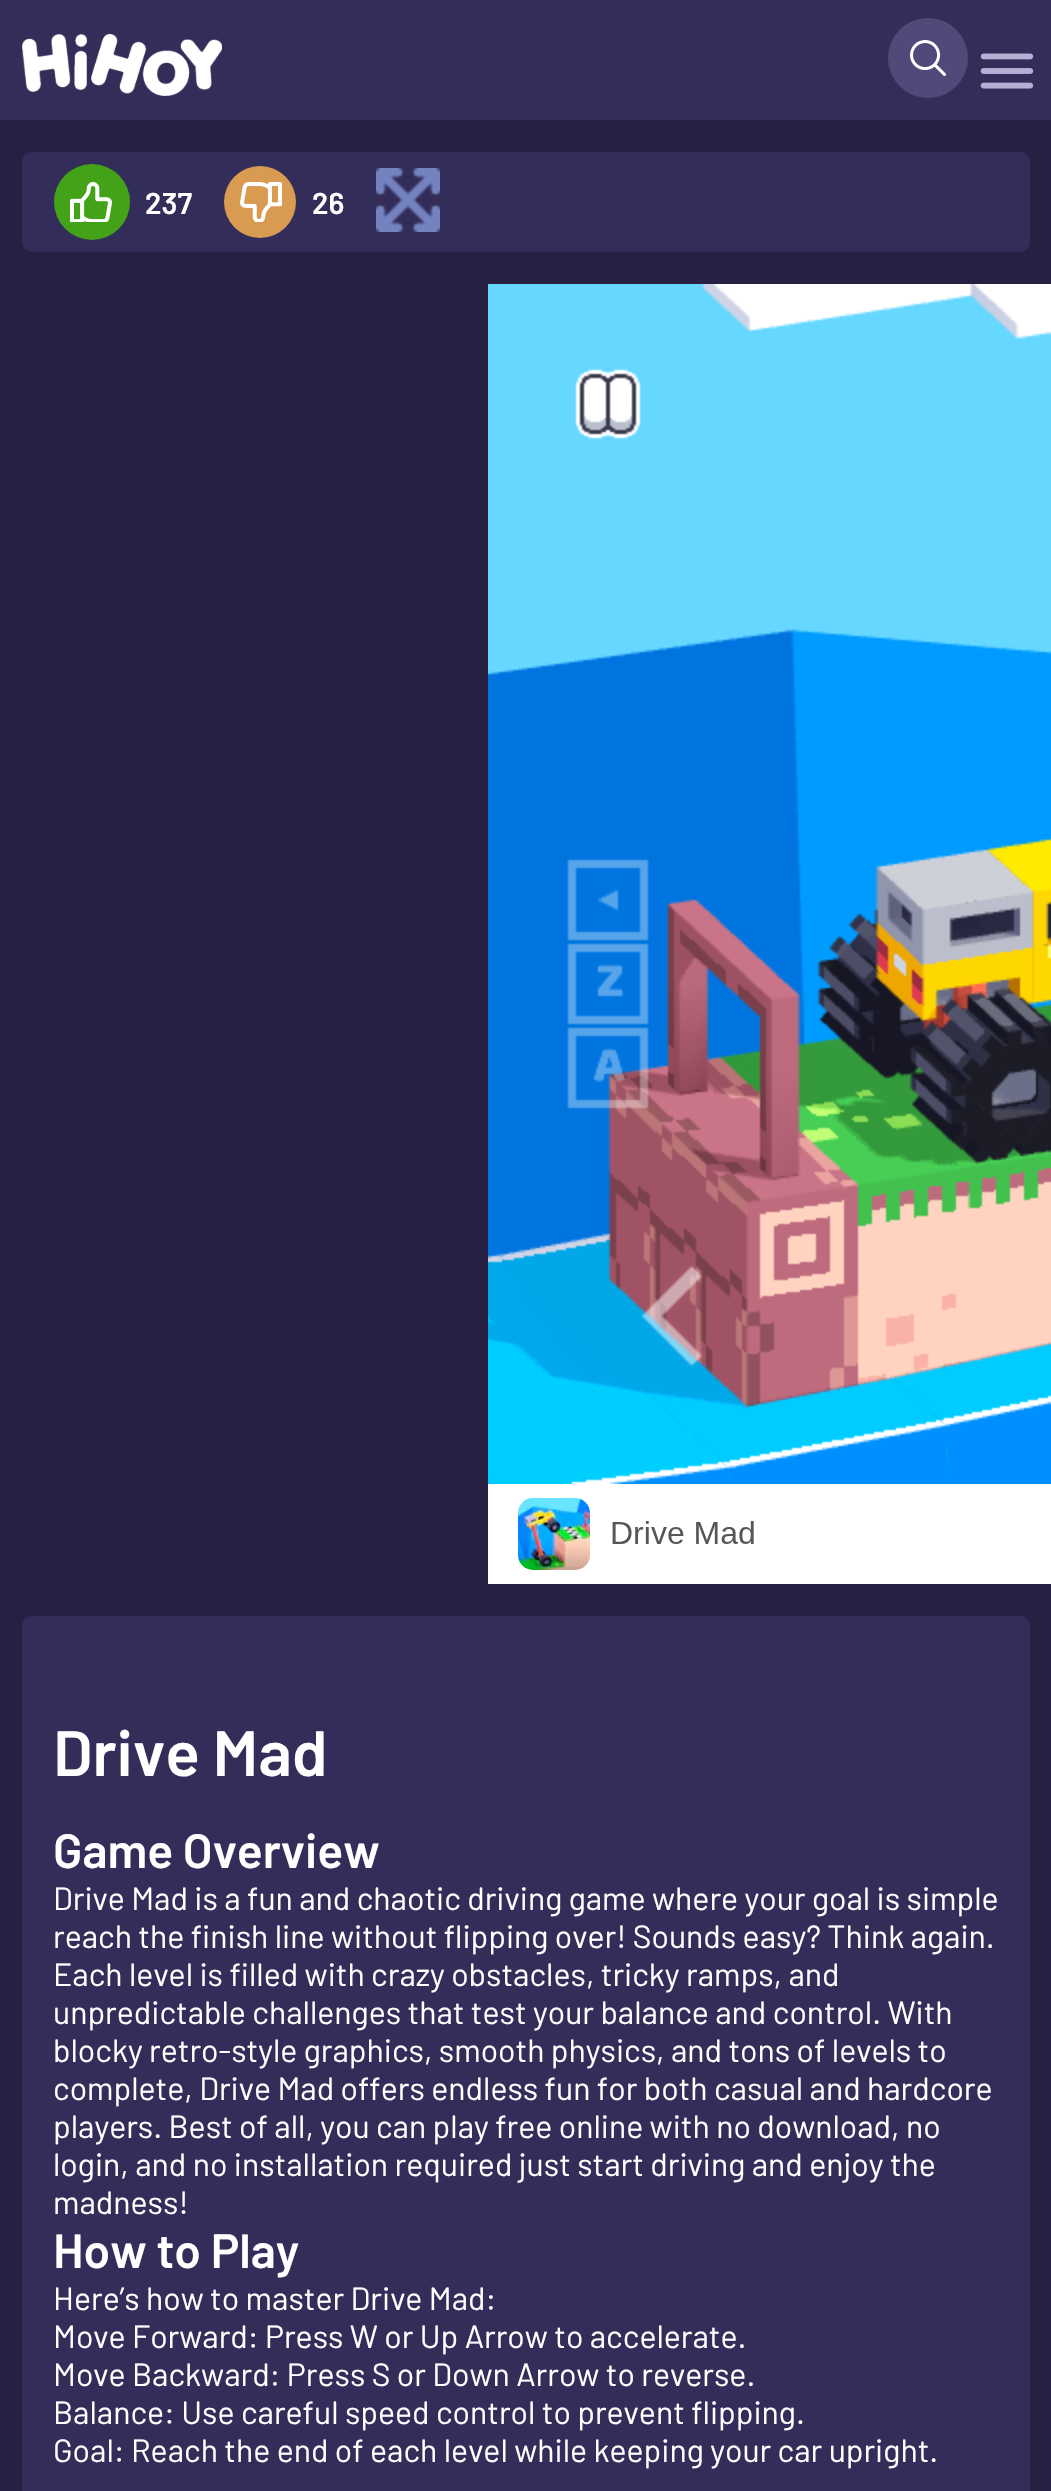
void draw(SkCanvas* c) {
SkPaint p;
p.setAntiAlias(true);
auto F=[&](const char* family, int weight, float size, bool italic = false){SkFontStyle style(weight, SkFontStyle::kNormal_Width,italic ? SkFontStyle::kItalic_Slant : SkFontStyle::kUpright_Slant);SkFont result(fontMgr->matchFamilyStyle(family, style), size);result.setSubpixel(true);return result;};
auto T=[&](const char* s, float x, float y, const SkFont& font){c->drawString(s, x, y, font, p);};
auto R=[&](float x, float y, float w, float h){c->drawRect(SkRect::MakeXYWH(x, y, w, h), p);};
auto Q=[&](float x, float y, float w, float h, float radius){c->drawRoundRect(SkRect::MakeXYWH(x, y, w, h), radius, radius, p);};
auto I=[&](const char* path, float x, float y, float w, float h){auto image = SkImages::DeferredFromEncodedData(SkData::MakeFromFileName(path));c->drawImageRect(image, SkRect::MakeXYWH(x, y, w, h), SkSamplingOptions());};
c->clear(0xff272042);
p.setColor(0xff332e59);
R(0,0,1051,120);
I("1.png",22,34,200,62);
p.setColor(0xff504a7b);
c->drawCircle(928,58,40,p);
I("2.png",910,40,36,36);
I("3.png",980,53,54,36);
p.setColor(0xff332e59);
Q(22,152,1008,100,10);
p.setColor(0xff44a219);
c->drawCircle(92,202,38,p);
I("4.png",70,182,42,40);
auto f1 = F("Barlow",600,30);
p.setColor(0xffffffff);
T("237",145,214,f1);
p.setColor(0xffd99a51);
c->drawCircle(260,202,36,p);
I("5.png",240,182,42,40);
p.setColor(0xffffffff);
T("26",312,214,f1);
I("6.png",376,168,64,64);
I("7.png",488,284,563,1300);
p.setColor(0xff332e59);
Q(22,1616,1008,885,10);
auto f2 = F("Barlow",600,64);
p.setColor(0xffffffff);
T("Drive Mad",53,1776,f2);
auto f3 = F("Barlow",600,48);
T("Game Overview",53,1868,f3);
auto f4 = F("Barlow",400,32);
T("Drive Mad is a fun and chaotic driving game where your goal is simple",53,1910,f4);
T("reach the finish line without flipping over! Sounds easy? Think again.",53,1948,f4);
T("Each level is filled with crazy obstacles, tricky ramps, and",53,1986,f4);
T("unpredictable challenges that test your balance and control. With",53,2024,f4);
T("blocky retro-style graphics, smooth physics, and tons of levels to",53,2062,f4);
T("complete, Drive Mad offers endless fun for both casual and hardcore",53,2100,f4);
T("players. Best of all, you can play free online with no download, no",53,2138,f4);
T("login, and no installation required just start driving and enjoy the",53,2176,f4);
T("madness!",53,2214,f4);
T("How to Play",53,2268,f3);
T("Here’s how to master Drive Mad:",53,2310,f4);
T("Move Forward: Press W or Up Arrow to accelerate.",53,2348,f4);
T("Move Backward: Press S or Down Arrow to reverse.",53,2386,f4);
T("Balance: Use careful speed control to prevent flipping.",53,2424,f4);
T("Goal: Reach the end of each level while keeping your car upright.",53,2462,f4);
}
